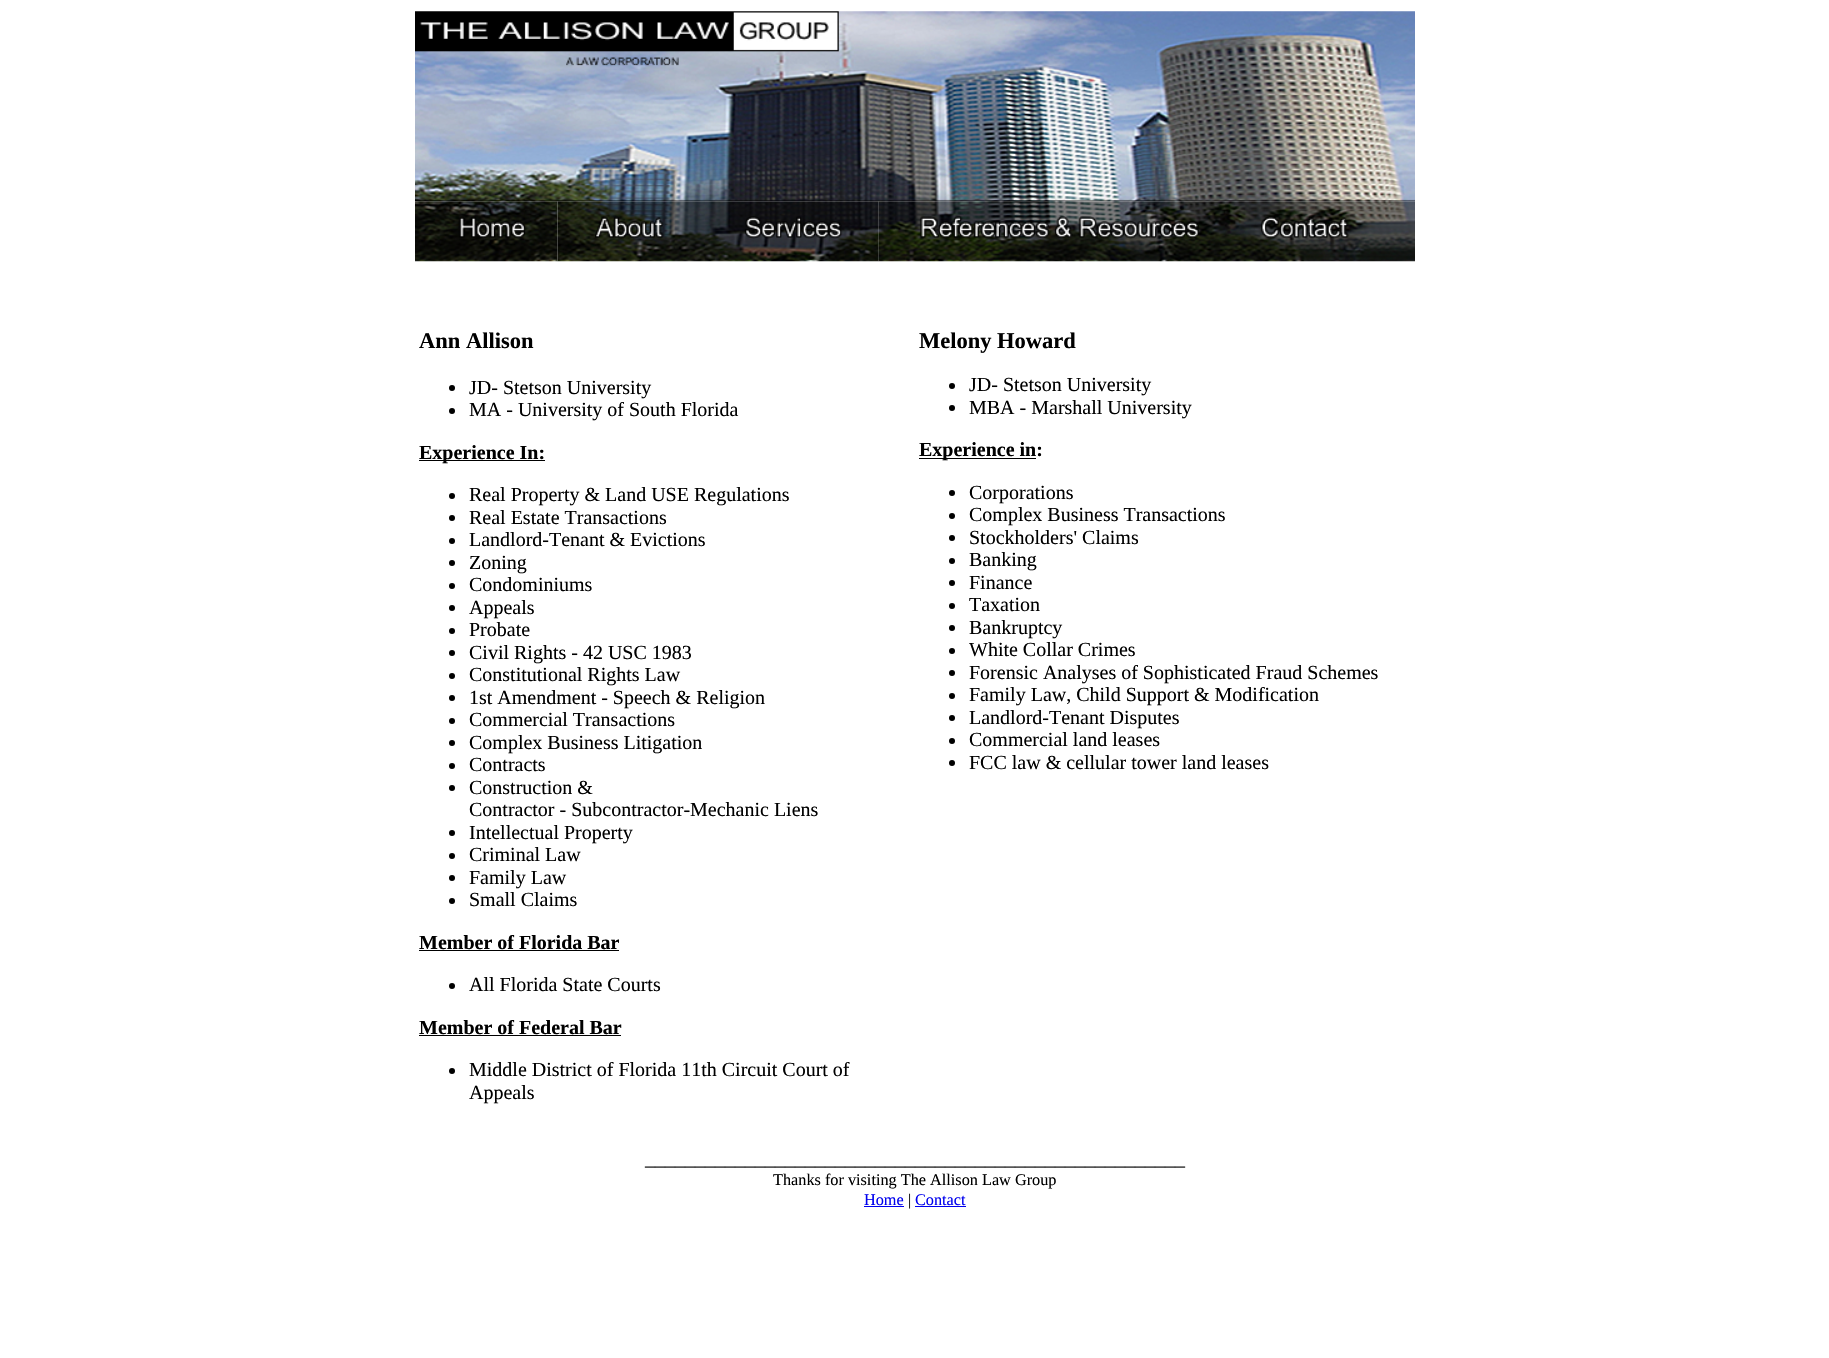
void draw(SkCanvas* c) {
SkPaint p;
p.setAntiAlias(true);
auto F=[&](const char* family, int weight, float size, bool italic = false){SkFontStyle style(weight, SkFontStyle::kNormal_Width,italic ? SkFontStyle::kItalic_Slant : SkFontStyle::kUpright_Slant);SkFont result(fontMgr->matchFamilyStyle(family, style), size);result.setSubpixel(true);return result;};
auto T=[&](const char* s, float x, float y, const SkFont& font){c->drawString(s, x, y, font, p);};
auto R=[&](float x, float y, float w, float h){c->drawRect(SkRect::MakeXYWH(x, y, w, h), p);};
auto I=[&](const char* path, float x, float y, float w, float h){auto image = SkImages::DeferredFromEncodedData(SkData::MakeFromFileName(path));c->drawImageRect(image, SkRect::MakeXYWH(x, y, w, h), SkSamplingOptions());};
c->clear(0xffffffff);
I("1.png",415,11,1000,191);
I("2.png",415,201,143,61);
I("3.png",557,201,148,61);
I("4.png",705,201,174,61);
I("5.png",878,201,347,61);
I("6.png",1225,201,190,61);
auto f1 = F("Liberation Serif",700,22.5);
p.setColor(0xff000000);
T("Ann Allison",419,348,f1);
c->drawCircle(452,388,3,p);
auto f2 = F("Liberation Serif",400,20);
T("JD- Stetson University",469,394,f2);
c->drawCircle(452,411,3,p);
T("MA - University of South Florida",469,416,f2);
R(419,460,126,1);
auto f3 = F("Liberation Serif",700,20);
T("Experience In:",419,459,f3);
c->drawCircle(452,496,3,p);
T("Real Property & Land USE Regulations",469,501,f2);
c->drawCircle(452,518,3,p);
T("Real Estate Transactions",469,524,f2);
c->drawCircle(452,541,3,p);
T("Landlord-Tenant & Evictions",469,546,f2);
c->drawCircle(452,563,3,p);
T("Zoning",469,569,f2);
c->drawCircle(452,586,3,p);
T("Condominiums",469,591,f2);
c->drawCircle(452,608,3,p);
T("Appeals",469,614,f2);
c->drawCircle(452,631,3,p);
T("Probate",469,636,f2);
c->drawCircle(452,653,3,p);
T("Civil Rights - 42 USC 1983",469,659,f2);
c->drawCircle(452,676,3,p);
T("Constitutional Rights Law",469,681,f2);
c->drawCircle(452,698,3,p);
T("1st Amendment - Speech & Religion",469,704,f2);
c->drawCircle(452,721,3,p);
T("Commercial Transactions",469,726,f2);
c->drawCircle(452,743,3,p);
T("Complex Business Litigation",469,749,f2);
c->drawCircle(452,766,3,p);
T("Contracts",469,771,f2);
c->drawCircle(452,788,3,p);
T("Construction &",469,794,f2);
T("Contractor - Subcontractor-Mechanic Liens",469,816,f2);
c->drawCircle(452,833,3,p);
T("Intellectual Property",469,839,f2);
c->drawCircle(452,856,3,p);
T("Criminal Law",469,861,f2);
c->drawCircle(452,878,3,p);
T("Family Law",469,884,f2);
c->drawCircle(452,901,3,p);
T("Small Claims",469,906,f2);
T("Member of Florida Bar",419,949,f3);
R(419,950,200,1);
c->drawCircle(452,986,3,p);
T("All Florida State Courts",469,991,f2);
T("Member of Federal Bar",419,1034,f3);
R(419,1035,202,1);
c->drawCircle(452,1071,3,p);
T("Middle District of Florida 11th Circuit Court of",469,1076,f2);
T("Appeals",469,1099,f2);
T("Melony Howard",919,348,f1);
c->drawCircle(952,386,3,p);
T("JD- Stetson University",969,391,f2);
c->drawCircle(952,408,3,p);
T("MBA - Marshall University",969,414,f2);
R(919,458,117,1);
T("Experience in:",919,456,f3);
c->drawCircle(952,493,3,p);
T("Corporations",969,499,f2);
c->drawCircle(952,516,3,p);
T("Complex Business Transactions",969,521,f2);
c->drawCircle(952,538,3,p);
T("Stockholders' Claims",969,544,f2);
c->drawCircle(952,561,3,p);
T("Banking",969,566,f2);
c->drawCircle(952,583,3,p);
T("Finance",969,589,f2);
c->drawCircle(952,606,3,p);
T("Taxation",969,611,f2);
c->drawCircle(952,628,3,p);
T("Bankruptcy",969,634,f2);
c->drawCircle(952,651,3,p);
T("White Collar Crimes",969,656,f2);
c->drawCircle(952,673,3,p);
T("Forensic Analyses of Sophisticated Fraud Schemes",969,679,f2);
c->drawCircle(952,696,3,p);
T("Family Law, Child Support & Modification",969,701,f2);
c->drawCircle(952,718,3,p);
T("Landlord-Tenant Disputes",969,724,f2);
c->drawCircle(952,741,3,p);
T("Commercial land leases",969,746,f2);
c->drawCircle(952,763,3,p);
T("FCC law & cellular tower land leases",969,769,f2);
T("______________________________________________________",645,1165,f2);
auto f4 = F("Liberation Serif",400,16.25);
T("Thanks for visiting The Allison Law Group",773,1185,f4);
p.setColor(0xff0000ee);
T("Home",864,1205,f4);
R(864,1206,40,1);
p.setColor(0xff000000);
T("|",908,1205,f4);
p.setColor(0xff0000ee);
T("Contact",915,1205,f4);
R(915,1206,51,1);
}
